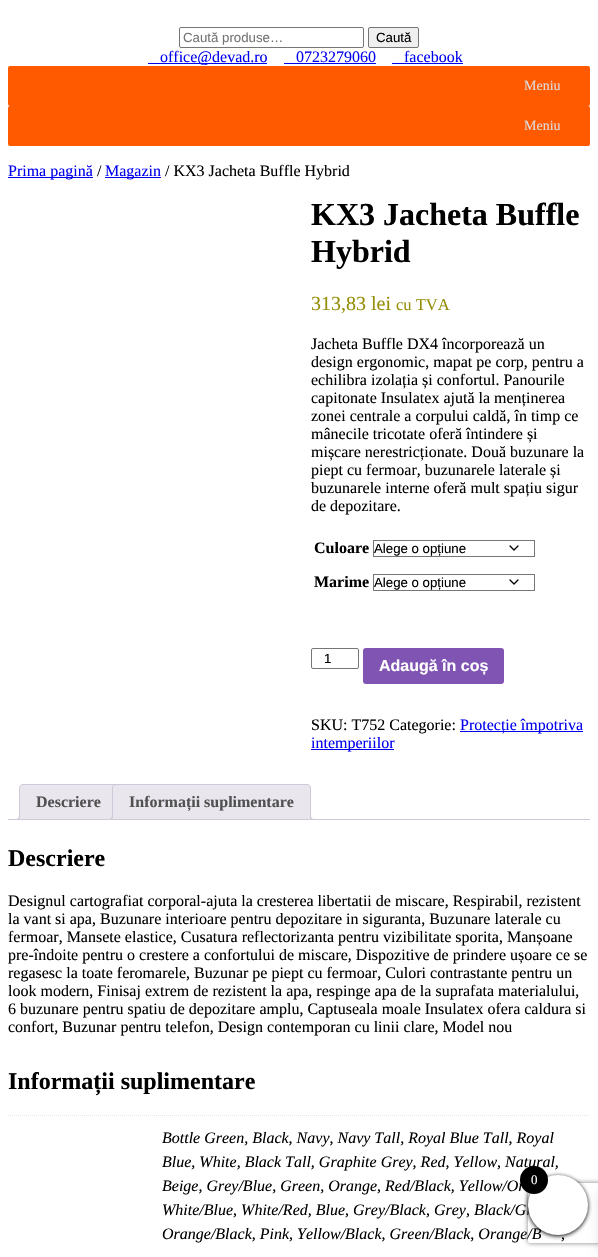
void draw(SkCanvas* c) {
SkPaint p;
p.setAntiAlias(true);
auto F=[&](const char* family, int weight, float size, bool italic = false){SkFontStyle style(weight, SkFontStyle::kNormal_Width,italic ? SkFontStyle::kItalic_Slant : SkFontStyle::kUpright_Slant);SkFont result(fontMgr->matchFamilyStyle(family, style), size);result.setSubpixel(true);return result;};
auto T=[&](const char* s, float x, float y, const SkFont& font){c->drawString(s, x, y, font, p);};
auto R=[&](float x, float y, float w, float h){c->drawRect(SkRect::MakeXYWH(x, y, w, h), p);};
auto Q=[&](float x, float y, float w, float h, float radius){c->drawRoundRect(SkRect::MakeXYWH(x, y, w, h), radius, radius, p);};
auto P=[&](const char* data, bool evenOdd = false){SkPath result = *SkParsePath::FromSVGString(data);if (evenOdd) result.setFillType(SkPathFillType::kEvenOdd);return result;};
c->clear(0xffffffff);
p.setStroke(true);
p.setStrokeWidth(1);
p.setColor(0xff767676);
c->drawRoundRect(SkRect::MakeXYWH(179.5,27.5,184,20),1.5,1.5,p);
auto f1 = F("Liberation Sans",400,13.25);
p.setStroke(false);
p.setColor(0xff757575);
T("Caută produse…",183,42,f1);
p.setColor(0xffefefef);
c->drawRoundRect(SkRect::MakeXYWH(368.5,27.5,50,20),1.5,1.5,p);
p.setStroke(true);
p.setColor(0xff767676);
c->drawRoundRect(SkRect::MakeXYWH(368.5,27.5,50,20),1.5,1.5,p);
p.setStroke(false);
p.setColor(0xff000000);
T("Caută",376,42,f1);
p.setColor(0xff0000ee);
R(148,63,119,1);
auto f2 = F("Liberation Serif",400,16);
T("office@devad.ro",160,62,f2);
T("0723279060",296,62,f2);
R(284,63,92,1);
T("facebook",404,62,f2);
R(392,63,71,1);
p.setColor(0xffff5a00);
Q(8,66,582,40,2);
auto f3 = F("Liberation Serif",400,14);
p.setColor(0xffdddddd);
T("Meniu",524,90,f3);
p.setColor(0xffff5a00);
Q(8,106,582,40,2);
p.setColor(0xffdddddd);
T("Meniu",524,130,f3);
p.setColor(0xff0000ee);
R(8,177,85,1);
T("Prima pagină",8,176,f2);
p.setColor(0xff000000);
T("/",97,176,f2);
p.setColor(0xff0000ee);
R(105,177,56,1);
T("Magazin",105,176,f2);
p.setColor(0xff000000);
T("/ KX3 Jacheta Buffle Hybrid",165,176,f2);
auto f4 = F("Liberation Serif",700,32);
T("KX3 Jacheta Buffle",311,225,f4);
T("Hybrid",311,262,f4);
auto f5 = F("Liberation Serif",400,20);
p.setColor(0xff958e09);
T("313,83 lei",311,310,f5);
auto f6 = F("Liberation Serif",400,16.5);
T("cu TVA",396,310,f6);
p.setColor(0xff000000);
T("Jacheta Buffle DX4 încorporează un",311,349,f2);
T("design ergonomic, mapat pe corp, pentru a",311,367,f2);
T("echilibra izolația și confortul. Panourile",311,385,f2);
T("capitonate Insulatex ajută la menținerea",311,403,f2);
T("zonei centrale a corpului caldă, în timp ce",311,421,f2);
T("mânecile tricotate oferă întindere și",311,439,f2);
T("mișcare nerestricționate. Două buzunare la",311,457,f2);
T("piept cu fermoar, buzunarele laterale și",311,475,f2);
T("buzunarele interne oferă mult spațiu sigur",311,493,f2);
T("de depozitare.",311,511,f2);
auto f7 = F("Liberation Serif",700,16);
T("Culoare",314,553,f7);
p.setStroke(true);
p.setStrokeWidth(1.3);
p.setStrokeCap(SkPaint::kRound_Cap);
p.setStrokeJoin(SkPaint::kRound_Join);
c->drawPath(P("M510 546l4 4l4-4"),p);
p.setStrokeWidth(1);
p.setStrokeCap(SkPaint::kButt_Cap);
p.setStrokeJoin(SkPaint::kMiter_Join);
p.setColor(0xff767676);
c->drawRect(SkRect::MakeXYWH(373.5,540.5,161,16),p);
p.setStroke(false);
p.setColor(0xff000000);
T("Alege o opțiune",374,553,f1);
T("Marime",314,587,f7);
p.setStroke(true);
p.setStrokeWidth(1.3);
p.setStrokeCap(SkPaint::kRound_Cap);
p.setStrokeJoin(SkPaint::kRound_Join);
c->drawPath(P("M510 580l4 4l4-4"),p);
p.setStrokeWidth(1);
p.setStrokeCap(SkPaint::kButt_Cap);
p.setStrokeJoin(SkPaint::kMiter_Join);
p.setColor(0xff767676);
c->drawRect(SkRect::MakeXYWH(373.5,574.5,161,16),p);
p.setStroke(false);
p.setColor(0xff000000);
T("Alege o opțiune",374,587,f1);
p.setStroke(true);
p.setColor(0xff767676);
c->drawRoundRect(SkRect::MakeXYWH(311.5,648.5,47,20),1.5,1.5,p);
p.setStroke(false);
p.setColor(0xff000000);
T("1",324,663,f1);
p.setColor(0xff7f54b3);
Q(363,648,141,36,3);
auto f8 = F("Liberation Sans",700,16);
p.setColor(0xffffffff);
T("Adaugă în coș",379,671,f8);
p.setColor(0xff000000);
T("SKU: T752 Categorie:",311,730,f2);
p.setColor(0xff0000ee);
R(460,731,123,1);
T("Protecție împotriva",460,730,f2);
R(311,749,83,1);
T("intemperiilor",311,748,f2);
p.setColor(0xffe9e6ed);
c->drawPath(P("M23 784.5h91c2 0 3.5 1.5 3.5 3.5v31.5h-98v-31.5c0-2 1.5-3.5 3.5-3.5z"),p);
p.setStroke(true);
p.setColor(0xffcfc8d8);
c->drawPath(P("M23 784.5h91c2 0 3.5 1.5 3.5 3.5v31.5h-98v-31.5c0-2 1.5-3.5 3.5-3.5z"),p);
p.setStroke(false);
p.setColor(0xff515151);
T("Descriere",36,807,f7);
c->save();
c->clipRect(SkRect::MakeXYWH(8,784,582,36));
p.setColor(0xffe9e6ed);
c->drawPath(P("M17 820v2c3.5 0 5-1.5 5-5h-2c-.5 1.5-1.5 2.5-3 3z"),p);
c->restore();
p.setColor(0xffcfc8d8);
c->drawPath(P("M15 815h5c0 3.5-1.5 5-5 5zm0 0h4c0 3-1 4-4 4z",true),p);
p.setColor(0xffe9e6ed);
c->drawPath(P("M116 784.5h191c2 0 3.5 1.5 3.5 3.5v31.5h-198v-31.5c0-2 1.5-3.5 3.5-3.5z"),p);
p.setStroke(true);
p.setColor(0xffcfc8d8);
c->drawPath(P("M116 784.5h191c2 0 3.5 1.5 3.5 3.5v31.5h-198v-31.5c0-2 1.5-3.5 3.5-3.5z"),p);
p.setStroke(false);
p.setColor(0xff515151);
T("Informații suplimentare",129,807,f7);
c->save();
c->clipRect(SkRect::MakeXYWH(8,784,582,36));
p.setColor(0xffe9e6ed);
c->drawPath(P("M110 820v2c3.5 0 5-1.5 5-5h-2c-.5 1.5-1.5 2.5-3 3z"),p);
c->restore();
p.setColor(0xffcfc8d8);
c->drawPath(P("M108 815h5c0 3.5-1.5 5-5 5zm0 0h4c0 3-1 4-4 4z",true),p);
c->save();
c->clipRect(SkRect::MakeXYWH(8,784,582,36));
p.setColor(0xffe9e6ed);
c->drawPath(P("M308 817c0 3.5 1.5 5 5 5v-2c-1.5-.5-2.5-1.5-3-3z"),p);
c->restore();
p.setColor(0xffcfc8d8);
c->drawPath(P("M310 815h5v5c-2.5 0-5-1-5-4zm1 0h4v4c-2 0-4-.5-4-3z",true),p);
R(8,819,582,1);
auto f9 = F("Liberation Serif",700,24);
p.setColor(0xff000000);
T("Descriere",8,866,f9);
T("Designul cartografiat corporal-ajuta la cresterea libertatii de miscare, Respirabil, rezistent",8,906,f2);
T("la vant si apa, Buzunare interioare pentru depozitare in siguranta, Buzunare laterale cu",8,924,f2);
T("fermoar, Mansete elastice, Cusatura reflectorizanta pentru vizibilitate sporita, Manșoane",8,942,f2);
T("pre-îndoite pentru o crestere a confortului de miscare, Dispozitive de prindere ușoare ce se",8,960,f2);
T("regasesc la toate feromarele, Buzunar pe piept cu fermoar, Culori contrastante pentru un",8,978,f2);
T("look modern, Finisaj extrem de rezistent la apa, respinge apa de la suprafata materialului,",8,996,f2);
T("6 buzunare pentru spatiu de depozitare amplu, Captuseala moale Insulatex ofera caldura si",8,1014,f2);
T("confort, Buzunar pentru telefon, Design contemporan cu linii clare, Model nou",8,1032,f2);
T("Informații suplimentare",8,1089,f9);
p.setStroke(true);
p.setColor(0xffe6e6e6);
p.setPathEffect(SkDashPathEffect::Make({{1,1}}, 0));
c->drawPath(P("M8 1115.5h582"),p);
p.setPathEffect(nullptr);
auto f10 = F("Liberation Serif",400,16,true);
p.setStroke(false);
p.setColor(0xff000000);
T("Bottle Green, Black, Navy, Navy Tall, Royal Blue Tall, Royal",162,1143,f10);
T("Blue, White, Black Tall, Graphite Grey, Red, Yellow, Natural,",162,1167,f10);
T("Beige, Grey/Blue, Green, Orange, Red/Black, Yellow/Or",162,1191,f10);
T("White/Blue, White/Red, Blue, Grey/Black, Grey, Black/Gr",162,1215,f10);
T("Orange/Black, Pink, Yellow/Black, Green/Black, Orange/B",162,1239,f10);
T(",",561,1239,f10);
c->save();
c->clipPath(P("M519 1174h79v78h-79zm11 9h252c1 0 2 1 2 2v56c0 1-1 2-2 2h-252c-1 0-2-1-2-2v-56c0-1 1-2 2-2z",true),true);
p.setColor(0xff808080);
p.setMaskFilter(SkMaskFilter::MakeBlur(kNormal_SkBlurStyle, 2.5));
c->drawRoundRect(SkRect::MakeXYWH(528,1183,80,60),2,2,p);
p.setMaskFilter(nullptr);
c->restore();
p.setColor(0xff000000);
p.setMaskFilter(SkMaskFilter::MakeBlur(kNormal_SkBlurStyle, 2));
c->drawRoundRect(SkRect::MakeXYWH(528,1176,60,60),30,30,p);
p.setMaskFilter(nullptr);
p.setColor(0x1a000000);
p.setMaskFilter(SkMaskFilter::MakeBlur(kNormal_SkBlurStyle, 5));
c->drawRect(SkRect::MakeXYWH(598,1192,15,60),p);
p.setMaskFilter(nullptr);
p.setColor(0xffffffff);
c->drawCircle(558,1205,30,p);
p.setColor(0xff000000);
c->drawCircle(534,1180,14,p);
auto f11 = F("Liberation Serif",400,13);
p.setColor(0xffffffff);
T("0",531,1184,f11);
}
